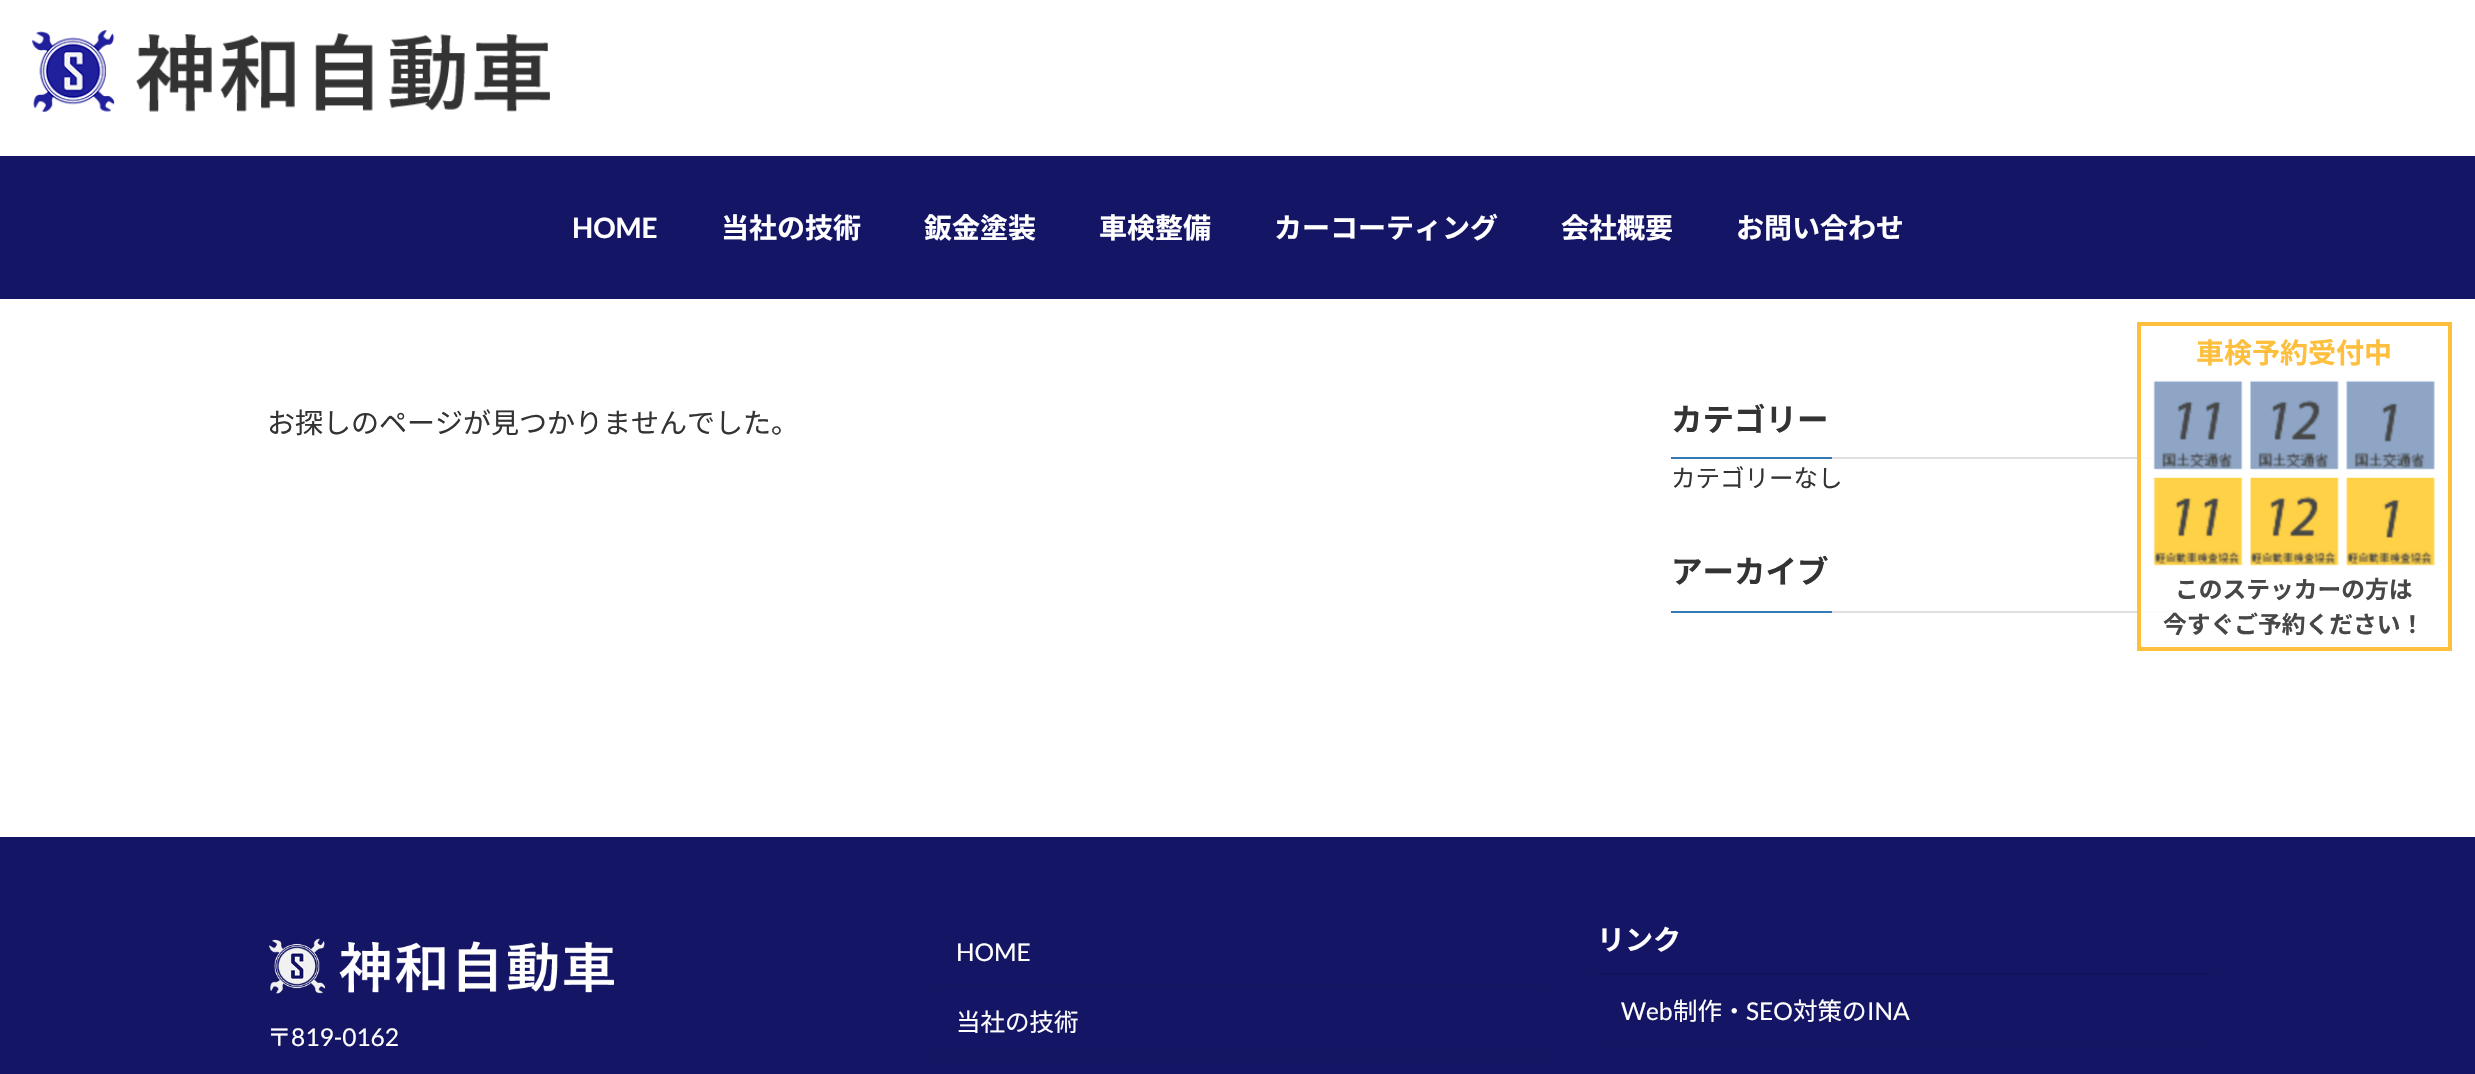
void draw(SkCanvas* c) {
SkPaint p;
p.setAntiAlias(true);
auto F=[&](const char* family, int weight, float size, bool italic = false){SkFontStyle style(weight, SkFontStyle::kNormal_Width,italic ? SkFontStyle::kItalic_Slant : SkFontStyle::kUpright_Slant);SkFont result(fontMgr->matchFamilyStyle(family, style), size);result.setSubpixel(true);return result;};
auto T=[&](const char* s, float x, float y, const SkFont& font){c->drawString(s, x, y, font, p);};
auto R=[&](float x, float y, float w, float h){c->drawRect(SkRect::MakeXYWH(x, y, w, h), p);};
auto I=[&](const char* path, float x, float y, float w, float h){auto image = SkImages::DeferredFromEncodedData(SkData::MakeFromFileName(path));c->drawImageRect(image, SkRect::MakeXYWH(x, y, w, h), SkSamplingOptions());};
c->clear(0xffffffff);
I("1.png",32,30,518,82);
p.setColor(0xff151566);
R(0,156,2475,143);
auto f1 = F("Lato",700,28);
p.setColor(0xffffffff);
T("HOME",572,238,f1);
auto f2 = F("Noto Sans JP",700,28);
T("当社の技術",721,238,f2);
T("鈑金塗装",924,238,f2);
T("車検整備",1099,238,f2);
T("カーコーティング",1274,238,f2);
T("会社概要",1561,238,f2);
T("お問い合わせ",1736,238,f2);
auto f3 = F("Noto Sans JP",400,28);
p.setColor(0xff333333);
T("お探しのページが見つかりませんでした。",267,433,f3);
p.setColor(0xffe0e0e0);
R(1832,457,305,2);
p.setColor(0xfffcfcfc);
R(2137,457,73,2);
auto f4 = F("Noto Sans JP",700,31.5);
p.setColor(0xff333333);
T("カテゴリー",1671,431,f4);
p.setColor(0xff337ab7);
R(1671,457,161,2);
auto f5 = F("Noto Sans JP",400,24.5);
p.setColor(0xff333333);
T("カテゴリーなし",1671,487,f5);
p.setColor(0xffe0e0e0);
R(1832,611,305,2);
p.setColor(0xfffcfcfc);
R(2137,611,73,2);
p.setColor(0xff333333);
T("アーカイブ",1671,583,f4);
p.setColor(0xff337ab7);
R(1671,611,161,2);
p.setStroke(true);
p.setStrokeWidth(4);
p.setColor(0xe6fdb827);
c->drawRect(SkRect::MakeXYWH(2139,324,311,325),p);
p.setStroke(false);
p.setColor(0xfffdbf3d);
T("車検予約受付中",2196,363,f2);
I("2.png",2153,380,282,186);
auto f6 = F("Noto Sans JP",700,23.75);
p.setColor(0xff474747);
T("このステッカーの方は",2175,598,f6);
T("今すぐご予約ください！",2163,633,f6);
p.setColor(0xff151566);
R(0,837,2475,237);
p.setColor(0xff141460);
R(933,984,612,2);
auto f7 = F("Lato",400,24.5);
p.setColor(0xffffffff);
T("HOME",956,961,f7);
p.setColor(0xff141460);
R(933,1055,612,2);
p.setColor(0xffffffff);
T("当社の技術",956,1031,f5);
p.setColor(0xff12125a);
R(1598,973,612,2);
p.setColor(0xffffffff);
T("リンク",1597,950,f2);
p.setColor(0xff141460);
R(1598,1045,612,2);
p.setColor(0xffffffff);
T("Web",1621,1020,f7);
T("制作・",1673,1020,f5);
T("SEO",1746,1020,f7);
T("対策の",1793,1020,f5);
T("INA",1867,1020,f7);
I("3.png",269,938,345,56);
T("〒",267,1046,f5);
T("819-0162",291,1046,f7);
}
